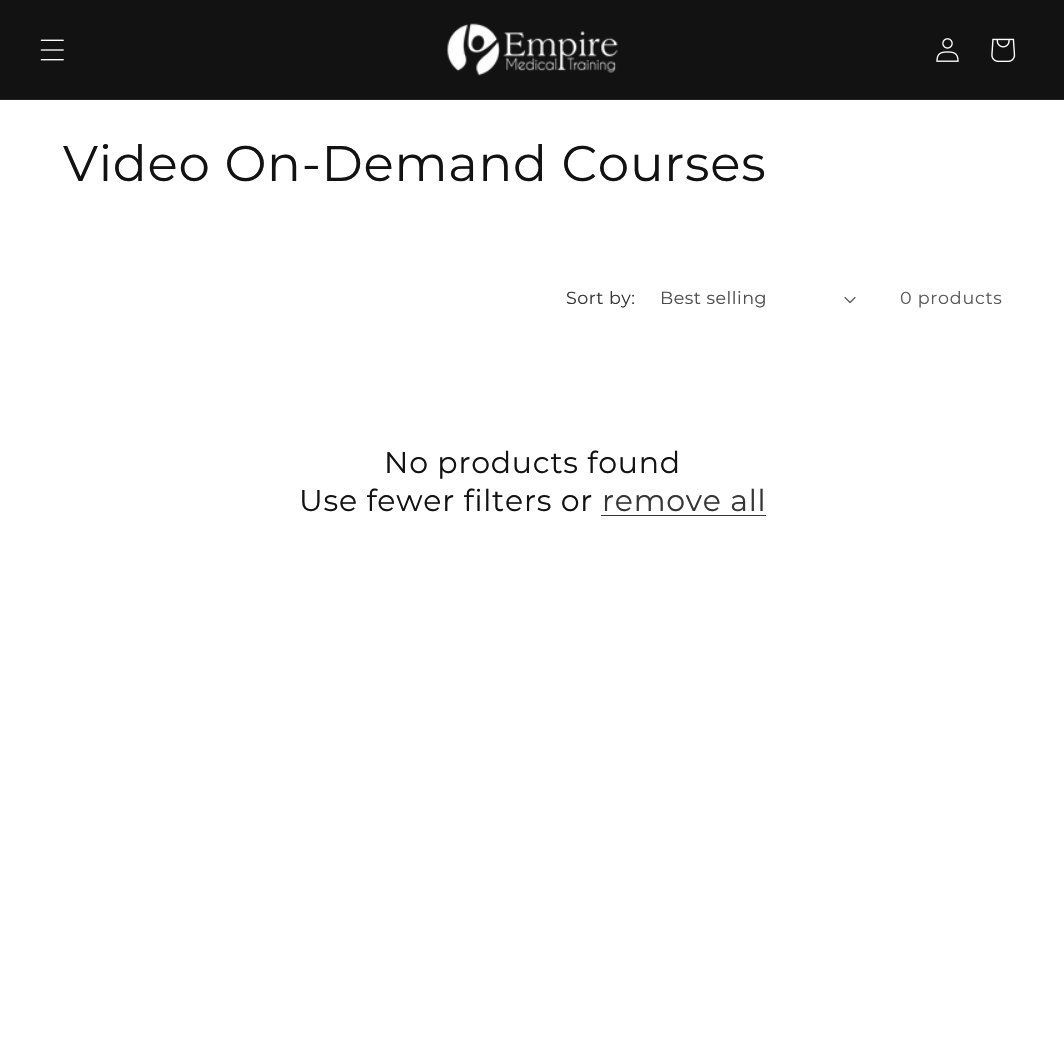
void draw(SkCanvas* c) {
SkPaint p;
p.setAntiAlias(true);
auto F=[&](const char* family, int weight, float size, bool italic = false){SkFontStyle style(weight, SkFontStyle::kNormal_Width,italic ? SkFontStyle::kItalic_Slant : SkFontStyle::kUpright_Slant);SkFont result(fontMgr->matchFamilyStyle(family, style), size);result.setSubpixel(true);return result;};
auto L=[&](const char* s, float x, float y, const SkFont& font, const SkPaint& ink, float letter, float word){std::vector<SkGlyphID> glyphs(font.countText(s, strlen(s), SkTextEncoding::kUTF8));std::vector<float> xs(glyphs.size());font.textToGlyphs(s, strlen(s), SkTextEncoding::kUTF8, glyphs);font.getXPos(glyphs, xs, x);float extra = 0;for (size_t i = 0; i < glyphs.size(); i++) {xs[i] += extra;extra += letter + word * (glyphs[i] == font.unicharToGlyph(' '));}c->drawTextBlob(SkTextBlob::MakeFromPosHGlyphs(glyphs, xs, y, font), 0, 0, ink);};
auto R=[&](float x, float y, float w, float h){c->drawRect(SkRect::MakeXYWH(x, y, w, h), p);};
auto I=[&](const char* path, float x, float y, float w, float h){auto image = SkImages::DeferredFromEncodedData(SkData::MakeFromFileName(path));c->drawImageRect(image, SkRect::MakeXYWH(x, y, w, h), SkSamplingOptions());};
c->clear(0xffffffff);
p.setColor(0xff121212);
R(0,0,1064,99);
p.setColor(0xff252525);
R(0,99,1064,1);
I("1.png",40,39,24,22);
I("2.png",446,23,172,53);
I("3.png",936,38,23,24);
I("4.png",991,38,25,24);
auto f1 = F("Montserrat",400,50);
p.setColor(0xff121212);
L("Video On-Demand Courses",63,181,f1,p,.75,0);
auto f2 = F("Montserrat",400,17.5);
p.setColor(0xff363636);
L("Sort by:",566,304,f2,p,.5,0);
p.setColor(0xff4d4d4d);
L("Best selling",660,304,f2,p,.5,0);
I("5.png",844,297,12,6);
p.setColor(0xff595959);
L("0 products",900,304,f2,p,.75,0);
auto f3 = F("Montserrat",400,30);
p.setColor(0xff121212);
L("No products found",384,473,f3,p,.75,0);
L("Use fewer filters or",299,511,f3,p,.75,0);
p.setColor(0xff363636);
L("remove all",602,511,f3,p,.75,0);
R(601,515,165,1);
}
